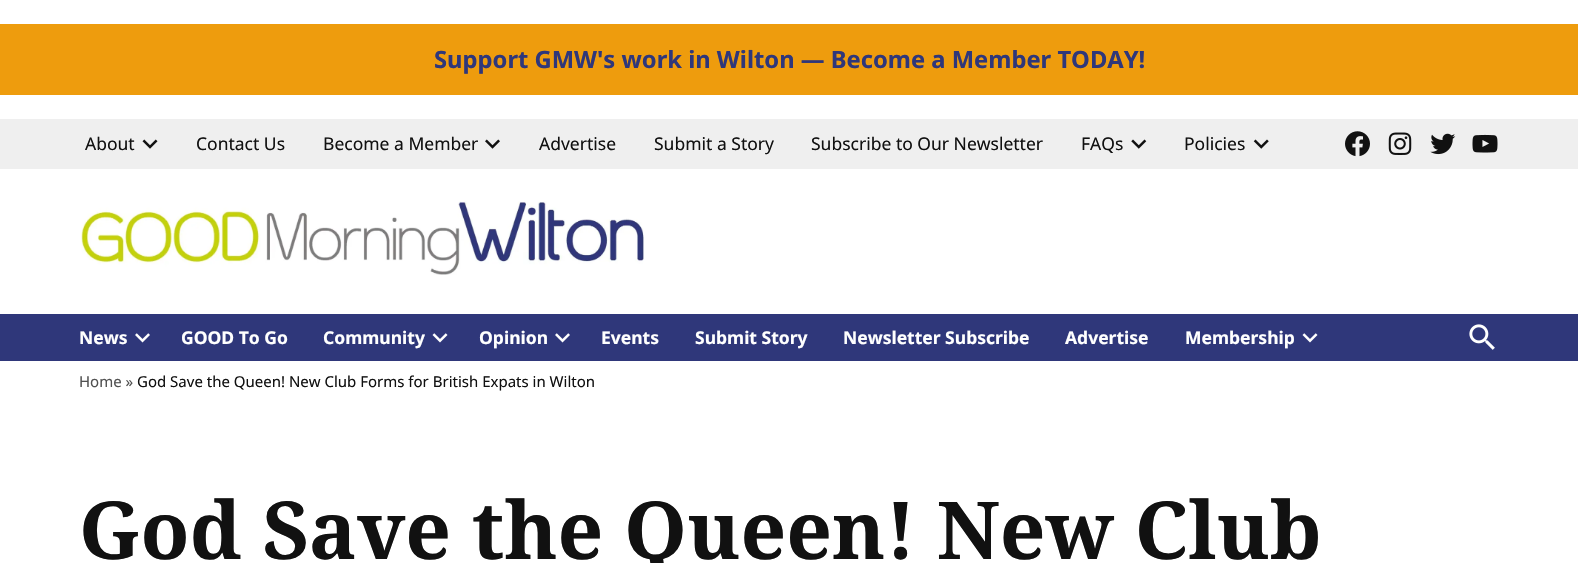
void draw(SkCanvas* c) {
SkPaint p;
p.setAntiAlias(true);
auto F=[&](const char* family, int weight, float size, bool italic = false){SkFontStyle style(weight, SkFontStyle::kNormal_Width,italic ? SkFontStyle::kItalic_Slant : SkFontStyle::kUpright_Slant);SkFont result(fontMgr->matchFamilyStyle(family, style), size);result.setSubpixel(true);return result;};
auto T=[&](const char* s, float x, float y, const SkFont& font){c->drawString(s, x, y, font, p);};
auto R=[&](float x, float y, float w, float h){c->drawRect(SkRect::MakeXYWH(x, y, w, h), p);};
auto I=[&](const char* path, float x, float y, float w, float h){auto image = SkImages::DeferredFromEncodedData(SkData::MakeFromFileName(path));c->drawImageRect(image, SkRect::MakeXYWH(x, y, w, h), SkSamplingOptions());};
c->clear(0xffffffff);
p.setColor(0xffee9c0d);
R(0,24,1578,71);
auto f1 = F("Noto Sans",700,23.75);
p.setColor(0xff2f377a);
T("Support GMW's work in Wilton — Become a Member TODAY!",434,68,f1);
p.setColor(0xffefefef);
R(0,119,1578,50);
auto f2 = F("Noto Sans",400,17.5);
p.setColor(0xff111111);
T("About",85,150,f2);
I("1.png",142,139,16,10);
T("Contact Us",196,150,f2);
T("Become a Member",323,150,f2);
I("2.png",485,139,15,10);
T("Advertise",539,150,f2);
T("Submit a Story",654,150,f2);
T("Subscribe to Our Newsletter",811,150,f2);
T("FAQs",1081,150,f2);
I("3.png",1131,139,16,10);
T("Policies",1184,150,f2);
I("4.png",1253,139,16,10);
I("5.png",1345,131,25,26);
I("6.png",1388,132,24,23);
I("7.png",1430,133,26,22);
I("8.png",1472,134,26,19);
I("9.png",81,201,563,74);
p.setColor(0xff2f377a);
R(0,314,1578,47);
auto f3 = F("Noto Sans",700,17.5);
p.setColor(0xffffffff);
T("News",79,344,f3);
I("10.png",135,333,15,10);
T("GOOD To Go",181,344,f3);
T("Community",323,344,f3);
I("11.png",432,333,16,10);
T("Opinion",479,344,f3);
I("10.png",555,333,15,10);
T("Events",601,344,f3);
T("Submit Story",695,344,f3);
T("Newsletter Subscribe",843,344,f3);
T("Advertise",1065,344,f3);
T("Membership",1185,344,f3);
I("11.png",1302,333,16,10);
I("12.png",1469,324,26,26);
auto f4 = F("Noto Sans",400,15);
p.setColor(0xff515151);
T("Home »",79,387,f4);
p.setColor(0xff111111);
T("God Save the Queen! New Club Forms for British Expats in Wilton",137,387,f4);
auto f5 = F("Noto Serif",700,80);
T("God Save the Queen! New Club",79,559,f5);
}
